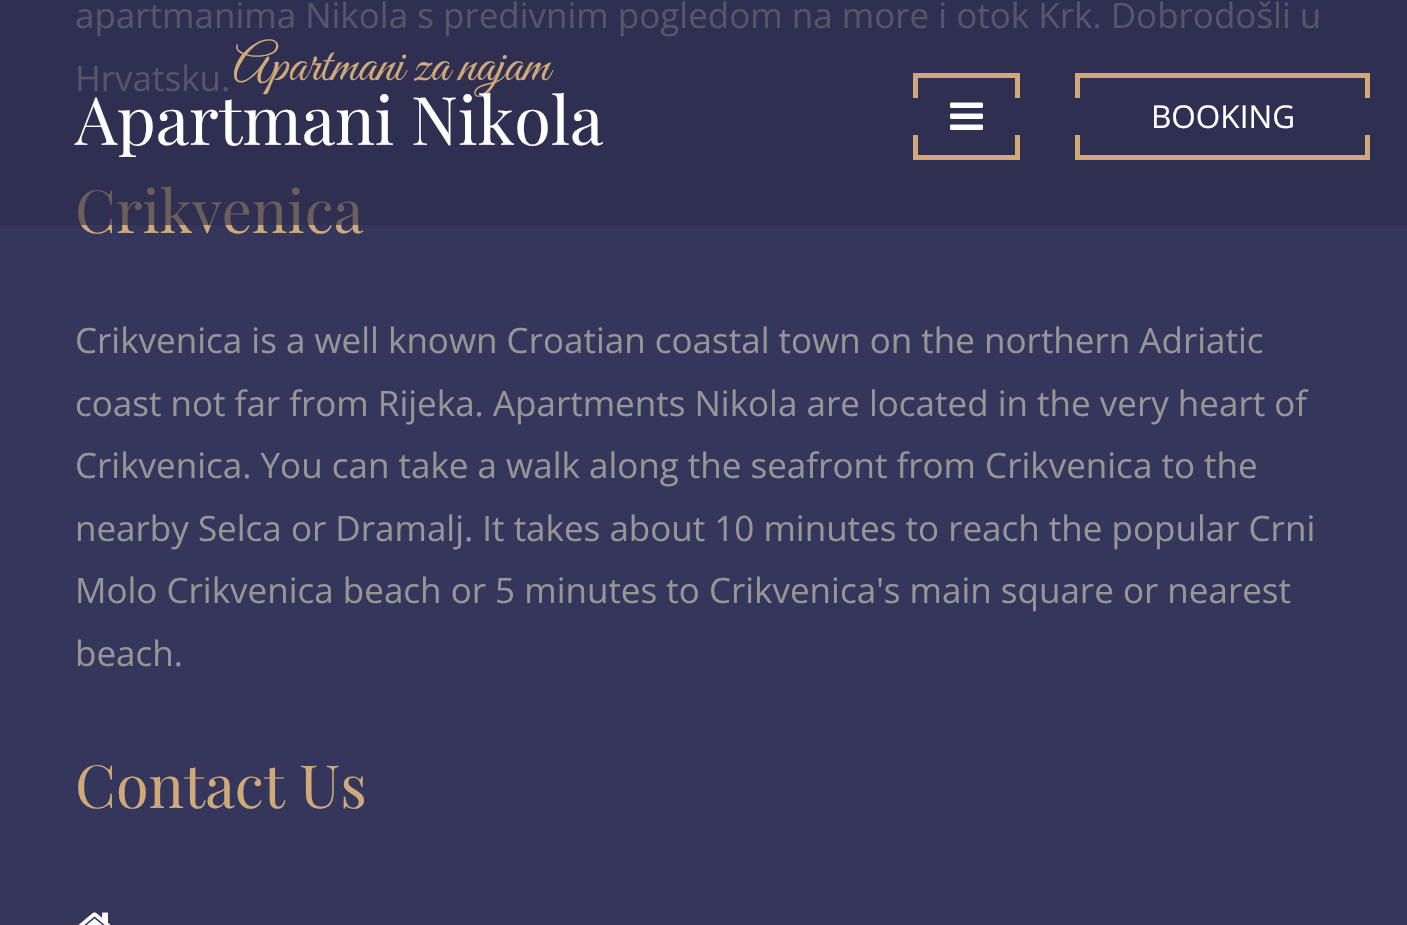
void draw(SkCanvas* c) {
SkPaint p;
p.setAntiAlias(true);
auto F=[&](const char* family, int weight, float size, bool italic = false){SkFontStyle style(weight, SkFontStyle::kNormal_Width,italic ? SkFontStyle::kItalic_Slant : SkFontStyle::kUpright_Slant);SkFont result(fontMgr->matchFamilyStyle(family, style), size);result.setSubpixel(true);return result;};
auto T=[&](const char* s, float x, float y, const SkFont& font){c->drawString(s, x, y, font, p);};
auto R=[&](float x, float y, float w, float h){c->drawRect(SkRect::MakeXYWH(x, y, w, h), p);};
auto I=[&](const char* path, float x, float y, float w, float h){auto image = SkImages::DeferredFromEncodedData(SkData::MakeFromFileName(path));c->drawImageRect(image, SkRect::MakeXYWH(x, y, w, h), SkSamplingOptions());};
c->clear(0xff35365c);
auto f1 = F("Open Sans",400,35);
p.setColor(0xff969696);
T("apartmanima Nikola s predivnim pogledom na more i otok Krk. Dobrodošli u",75,28,f1);
T("Hrvatsku.",75,91,f1);
auto f2 = F("Playfair Display",400,59.5);
p.setColor(0xffcfa97a);
T("Crikvenica",75,233,f2);
p.setColor(0xff969696);
T("Crikvenica is a well known Croatian coastal town on the northern Adriatic",75,353,f1);
T("coast not far from Rijeka. Apartments Nikola are located in the very heart of",75,416,f1);
T("Crikvenica. You can take a walk along the seafront from Crikvenica to the",75,478,f1);
T("nearby Selca or Dramalj. It takes about 10 minutes to reach the popular Crni",75,541,f1);
T("Molo Crikvenica beach or 5 minutes to Crikvenica's main square or nearest",75,603,f1);
T("beach.",75,666,f1);
p.setColor(0xffcfa97a);
T("Contact Us",75,808,f2);
I("1.png",78,912,33,13);
p.setColor(0x992a2b49);
R(0,0,1407,225);
auto f3 = F("Great Vibes",400,52.5);
p.setColor(0xffcfa97a);
T("Apartmani za najam",233,80,f3);
auto f4 = F("Playfair Display",400,66.75);
p.setColor(0xffffffff);
T("Apartmani Nikola",75,145,f4);
p.setColor(0xffcfa97a);
R(913,73,107,5);
R(1015,73,5,25);
R(913,73,5,25);
I("2.png",950,102,33,28);
R(1015,135,5,25);
R(913,155,107,5);
R(913,135,5,25);
R(1075,73,295,5);
R(1365,73,5,25);
R(1075,73,5,25);
auto f5 = F("Open Sans",400,31.5);
p.setColor(0xffffffff);
T("BOOKING",1151,128,f5);
p.setColor(0xffcfa97a);
R(1365,135,5,25);
R(1075,155,295,5);
R(1075,135,5,25);
}
